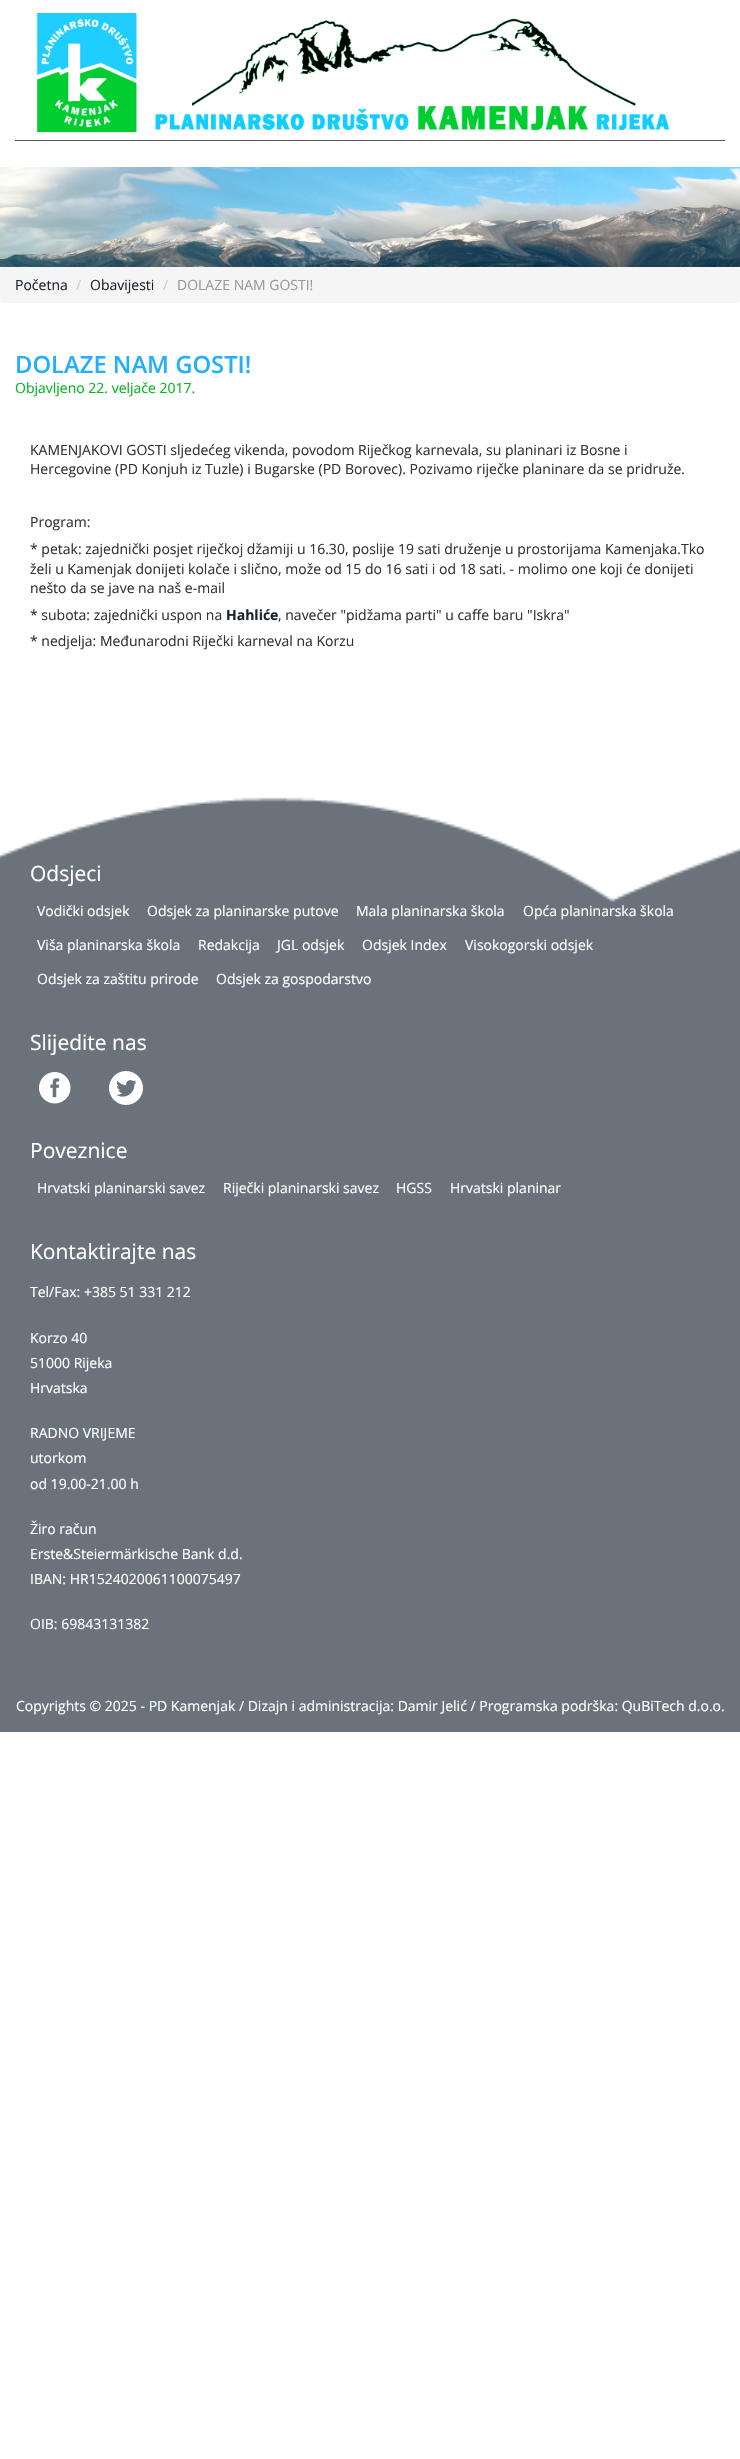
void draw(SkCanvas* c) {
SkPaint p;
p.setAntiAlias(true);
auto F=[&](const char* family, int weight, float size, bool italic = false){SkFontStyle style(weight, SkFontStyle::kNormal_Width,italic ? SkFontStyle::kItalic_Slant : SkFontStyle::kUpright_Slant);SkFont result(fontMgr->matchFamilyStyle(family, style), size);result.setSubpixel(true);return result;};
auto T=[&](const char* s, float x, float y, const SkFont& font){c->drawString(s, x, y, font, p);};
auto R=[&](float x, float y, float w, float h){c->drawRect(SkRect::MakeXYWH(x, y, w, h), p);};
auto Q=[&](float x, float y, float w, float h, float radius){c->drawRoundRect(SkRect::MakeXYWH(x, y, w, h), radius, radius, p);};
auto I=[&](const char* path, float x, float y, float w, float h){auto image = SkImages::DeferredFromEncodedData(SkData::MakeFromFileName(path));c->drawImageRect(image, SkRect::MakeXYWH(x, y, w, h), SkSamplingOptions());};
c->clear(0xffffffff);
p.setColor(0xff555555);
R(15,140,710,1);
I("1.png",37,13,633,120);
I("2.png",0,167,740,100);
p.setColor(0xfff5f5f5);
Q(0,267,740,36,4);
auto f1 = F("Open Sans",400,14);
p.setColor(0xff1b242f);
T("Početna",15,290,f1);
p.setColor(0xffcccccc);
T("/",76,290,f1);
p.setColor(0xff1b242f);
T("Obavijesti",90,290,f1);
p.setColor(0xffcccccc);
T("/",163,290,f1);
p.setColor(0xff999999);
T("DOLAZE NAM GOSTI!",177,290,f1);
auto f2 = F("Open Sans",600,23.75);
p.setColor(0xff22afff);
T("DOLAZE NAM GOSTI!",15,373,f2);
p.setColor(0xff05b422);
T("Objavljeno 22. veljače 2017.",15,393,f1);
p.setColor(0xff333333);
T("KAMENJAKOVI GOSTI sljedećeg vikenda, povodom Riječkog karnevala, su planinari iz Bosne i",30,455,f1);
T("Hercegovine (PD Konjuh iz Tuzle) i Bugarske (PD Borovec). Pozivamo riječke planinare da se pridruže.",30,474,f1);
T("Program:",30,527,f1);
T("* petak: zajednički posjet riječkoj džamiji u 16.30, poslije 19 sati druženje u prostorijama Kamenjaka.Tko",30,554,f1);
T("želi u Kamenjak donijeti kolače i slično, može od 15 do 16 sati i od 18 sati. - molimo one koji će donijeti",30,574,f1);
T("nešto da se jave na naš e-mail",30,593,f1);
T("* subota: zajednički uspon na",30,620,f1);
auto f3 = F("Open Sans",700,14);
p.setColor(0xff1b242f);
T("Hahliće",226,620,f3);
p.setColor(0xff333333);
T(", navečer \"pidžama parti\" u caffe baru \"Iskra\"",278,620,f1);
T("* nedjelja: Međunarodni Riječki karneval na Korzu",30,646,f1);
I("3.png",0,797,740,935);
auto f4 = F("Open Sans",400,21);
p.setColor(0xffffffff);
T("Odsjeci",30,881,f4);
T("Vodički odsjek",37,916,f1);
T("Odsjek za planinarske putove",147,916,f1);
T("Mala planinarska škola",356,916,f1);
T("Opća planinarska škola",523,916,f1);
T("Viša planinarska škola",37,950,f1);
T("Redakcija",198,950,f1);
T("JGL odsjek",277,950,f1);
T("Odsjek Index",362,950,f1);
T("Visokogorski odsjek",465,950,f1);
T("Odsjek za zaštitu prirode",37,984,f1);
T("Odsjek za gospodarstvo",216,984,f1);
T("Slijedite nas",30,1050,f4);
I("4.png",39,1072,32,32);
I("5.png",109,1071,34,34);
T("Poveznice",30,1158,f4);
T("Hrvatski planinarski savez",37,1193,f1);
T("Riječki planinarski savez",223,1193,f1);
T("HGSS",396,1193,f1);
T("Hrvatski planinar",450,1193,f1);
T("Kontaktirajte nas",30,1259,f4);
T("Tel/Fax: +385 51 331 212",30,1297,f1);
T("Korzo 40",30,1343,f1);
T("51000 Rijeka",30,1368,f1);
T("Hrvatska",30,1393,f1);
T("RADNO VRIJEME",30,1438,f1);
T("utorkom",30,1463,f1);
T("od 19.00-21.00 h",30,1489,f1);
T("Žiro račun",30,1534,f1);
T("Erste&Steiermärkische Bank d.d.",30,1559,f1);
T("IBAN: HR1524020061100075497",30,1584,f1);
T("OIB: 69843131382",30,1629,f1);
T("Copyrights © 2025 - PD Kamenjak / Dizajn i administracija: Damir Jelić / Programska podrška: QuBiTech d.o.o.",16,1711,f1);
}
